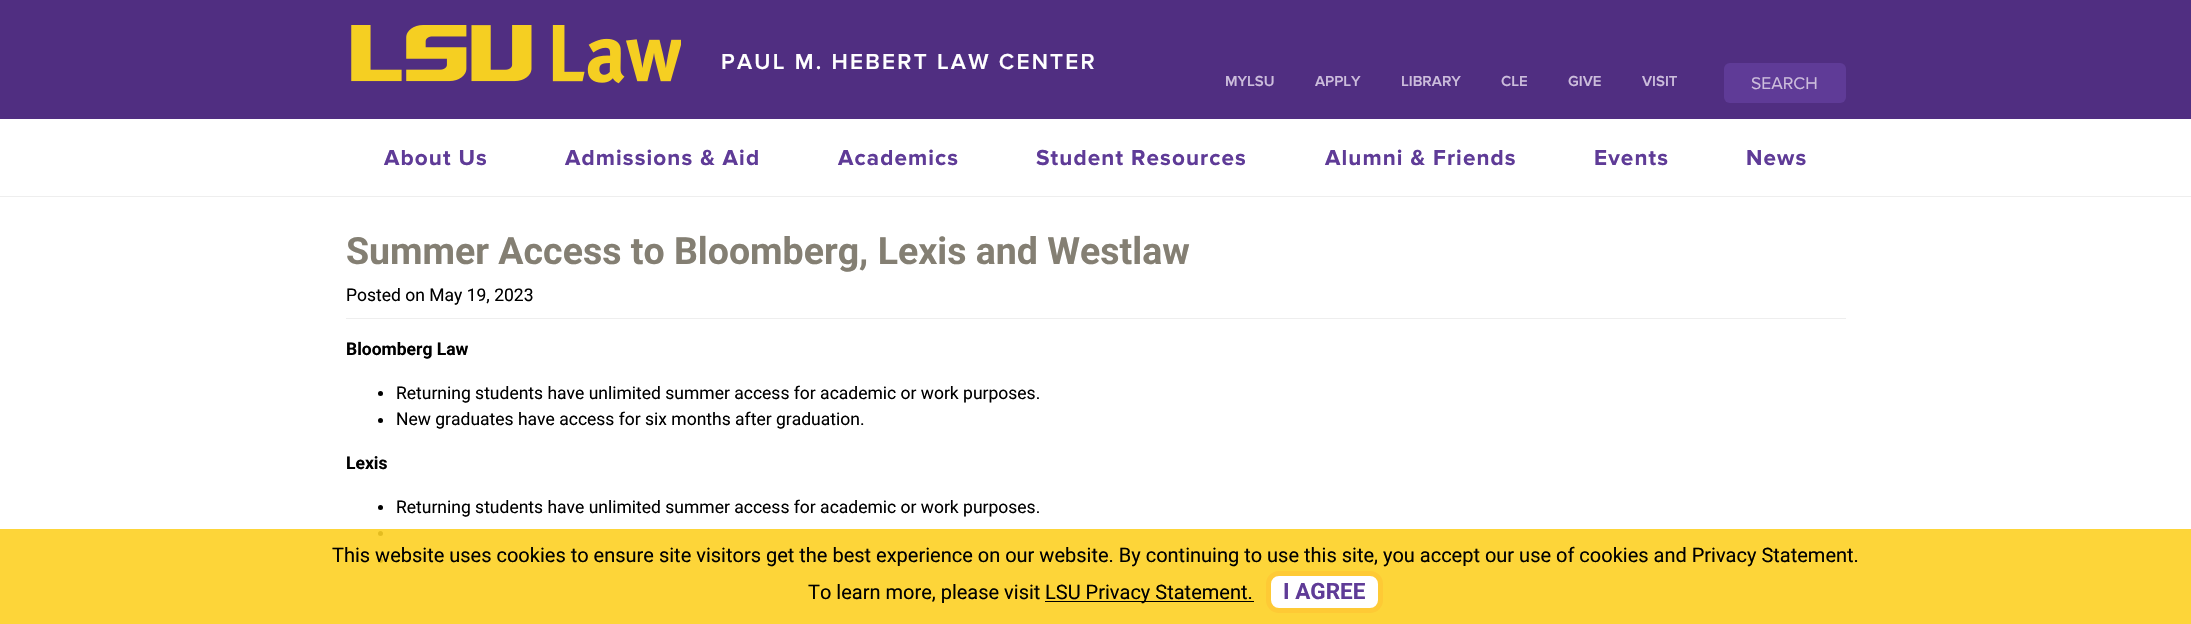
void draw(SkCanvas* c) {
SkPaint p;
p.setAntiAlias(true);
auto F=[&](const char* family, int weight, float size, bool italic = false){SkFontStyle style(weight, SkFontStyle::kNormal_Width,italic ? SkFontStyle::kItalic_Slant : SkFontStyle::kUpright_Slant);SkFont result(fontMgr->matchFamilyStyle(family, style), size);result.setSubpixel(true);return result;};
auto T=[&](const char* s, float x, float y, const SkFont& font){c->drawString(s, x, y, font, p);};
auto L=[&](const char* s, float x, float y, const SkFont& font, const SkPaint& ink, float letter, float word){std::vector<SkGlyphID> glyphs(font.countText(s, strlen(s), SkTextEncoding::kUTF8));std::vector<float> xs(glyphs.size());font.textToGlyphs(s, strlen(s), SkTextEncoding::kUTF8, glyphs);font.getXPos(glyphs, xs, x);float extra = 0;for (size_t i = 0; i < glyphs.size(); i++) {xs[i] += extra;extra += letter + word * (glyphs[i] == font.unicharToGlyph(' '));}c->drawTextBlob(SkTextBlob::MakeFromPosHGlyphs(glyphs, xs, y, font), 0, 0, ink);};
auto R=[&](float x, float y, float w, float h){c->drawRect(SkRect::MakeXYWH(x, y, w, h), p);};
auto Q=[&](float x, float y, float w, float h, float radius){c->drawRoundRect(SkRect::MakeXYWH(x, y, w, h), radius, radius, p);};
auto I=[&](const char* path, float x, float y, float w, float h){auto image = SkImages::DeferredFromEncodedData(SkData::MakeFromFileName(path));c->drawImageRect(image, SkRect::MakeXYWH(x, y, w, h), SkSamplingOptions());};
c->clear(0xffffffff);
p.setColor(0xffeeeeee);
R(0,196,2191,1);
p.setColor(0xff502e81);
R(0,0,2191,119);
I("1.png",351,25,330,59);
auto f1 = F("Proxima Nova",600,22.5);
p.setColor(0xffffffff);
L("PAUL M. HEBERT LAW CENTER",721,69,f1,p,2.25,0);
auto f2 = F("Proxima Nova",600,15);
p.setColor(0xffccbddc);
T("MYLSU",1225,86,f2);
T("APPLY",1315,86,f2);
T("LIBRARY",1401,86,f2);
T("CLE",1501,86,f2);
T("GIVE",1568,86,f2);
T("VISIT",1642,86,f2);
p.setColor(0xff5f3b97);
Q(1724,63,122,40,6);
auto f3 = F("Proxima Nova",400,17.5);
p.setColor(0xffccbddc);
T("SEARCH",1751,89,f3);
auto f4 = F("Proxima Nova",700,22.5);
p.setColor(0xff5f3b97);
L("About Us",384,165,f4,p,1.1,0);
L("Admissions & Aid",565,165,f4,p,1.1,0);
L("Academics",838,165,f4,p,1.1,0);
L("Student Resources",1036,165,f4,p,1.1,0);
L("Alumni & Friends",1325,165,f4,p,1.1,0);
L("Events",1594,165,f4,p,1.1,0);
L("News",1746,165,f4,p,1.1,0);
auto f5 = F("Roboto",700,37.5);
p.setColor(0xff847f73);
T("Summer Access to Bloomberg, Lexis and Westlaw",346,264,f5);
p.setColor(0xffeeeeee);
R(346,318,1500,1);
auto f6 = F("Roboto",400,17.5);
p.setColor(0xff000000);
T("Posted on May 19, 2023",346,301,f6);
auto f7 = F("Roboto",700,17.5);
T("Bloomberg Law",346,355,f7);
c->drawCircle(380.5,393.5,2.5,p);
T("Returning students have unlimited summer access for academic or work purposes.",396,399,f6);
c->drawCircle(380.5,420.5,2.5,p);
T("New graduates have access for six months after graduation.",396,425,f6);
T("Lexis",346,469,f7);
c->drawCircle(380.5,507.5,2.5,p);
T("Returning students have unlimited summer access for academic or work purposes.",396,513,f6);
c->drawCircle(380.5,533.5,2.5,p);
c->drawCircle(380.5,560.5,2.5,p);
p.setColor(0xe6fdd023);
R(0,529,2191,95);
auto f8 = F("Roboto",400,20);
p.setColor(0xff000000);
T("This website uses cookies to ensure site visitors get the best experience on our website. By continuing to use this site, you accept our use of cookies and Privacy Statement.",332,562,f8);
T("To learn more, please visit",808,599,f8);
R(1045,601,209,1);
T("LSU Privacy Statement.",1045,599,f8);
p.setColor(0xffffffff);
c->drawRoundRect(SkRect::MakeXYWH(1268.5,573.5,112,37),10.5,10.5,p);
p.setStroke(true);
p.setStrokeWidth(5);
p.setColor(0xfffeca35);
c->drawRoundRect(SkRect::MakeXYWH(1268.5,573.5,112,37),10.5,10.5,p);
auto f9 = F("Roboto",700,22.5);
p.setStroke(false);
p.setColor(0xff5f3b97);
T("I AGREE",1283,599,f9);
}
